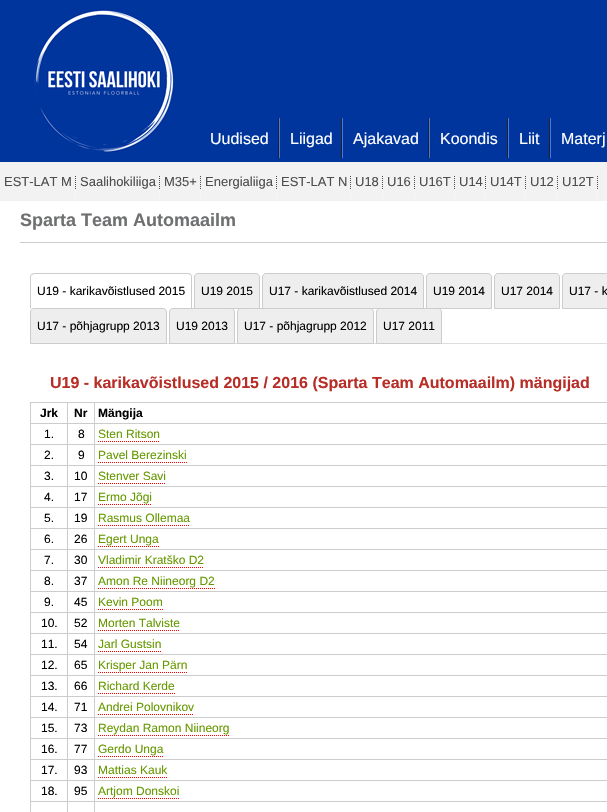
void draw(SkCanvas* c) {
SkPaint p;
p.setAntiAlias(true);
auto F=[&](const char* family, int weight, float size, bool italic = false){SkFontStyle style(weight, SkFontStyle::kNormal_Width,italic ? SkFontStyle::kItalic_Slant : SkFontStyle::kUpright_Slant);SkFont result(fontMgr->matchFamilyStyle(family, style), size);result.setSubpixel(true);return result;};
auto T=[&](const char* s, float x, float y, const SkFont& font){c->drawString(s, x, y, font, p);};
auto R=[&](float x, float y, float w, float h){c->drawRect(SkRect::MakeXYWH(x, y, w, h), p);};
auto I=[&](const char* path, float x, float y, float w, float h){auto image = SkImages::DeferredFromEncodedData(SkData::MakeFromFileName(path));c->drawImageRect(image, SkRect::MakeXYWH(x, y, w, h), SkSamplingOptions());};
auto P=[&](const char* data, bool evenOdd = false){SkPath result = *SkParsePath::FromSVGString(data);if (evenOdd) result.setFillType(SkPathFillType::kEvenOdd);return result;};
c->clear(0xffffffff);
p.setColor(0xff00359d);
R(0,0,607,162);
I("1.png",34,9,140,144);
I("2.png",278,118,1,40);
p.setColor(0xff447ae4);
R(279,118,1,40);
auto f1 = F("Liberation Sans",400,16);
p.setColor(0xffffffff);
T("Uudised",210,144,f1);
I("2.png",341,118,1,40);
p.setColor(0xff447ae4);
R(342,118,1,40);
p.setColor(0xffffffff);
T("Liigad",290,144,f1);
I("2.png",428,118,1,40);
p.setColor(0xff447ae4);
R(429,118,1,40);
p.setColor(0xffffffff);
T("Ajakavad",353,144,f1);
I("2.png",507,118,1,40);
p.setColor(0xff447ae4);
R(508,118,1,40);
p.setColor(0xffffffff);
T("Koondis",440,144,f1);
I("2.png",549,118,1,40);
p.setColor(0xff447ae4);
R(550,118,1,40);
p.setColor(0xffffffff);
T("Liit",519,144,f1);
T("Materj",561,144,f1);
p.setColor(0xfff2f2f2);
R(0,162,607,39);
I("3.png",75,176,1,23);
auto f2 = F("Liberation Sans",400,13);
p.setColor(0xff4c4d4e);
T("EST-LAT M",4,186,f2);
I("3.png",159,176,1,23);
T("Saalihokiliiga",80,186,f2);
I("3.png",200,176,1,23);
T("M35+",164,186,f2);
I("3.png",276,176,1,23);
T("Energialiiga",205,186,f2);
I("3.png",350,176,1,23);
T("EST-LAT N",281,186,f2);
I("3.png",382,176,1,23);
T("U18",355,186,f2);
I("3.png",414,176,1,23);
T("U16",387,186,f2);
I("3.png",454,176,1,23);
T("U16T",419,186,f2);
I("3.png",485,176,1,23);
T("U14",459,186,f2);
I("3.png",525,176,1,23);
T("U14T",490,186,f2);
I("3.png",557,176,1,23);
T("U12",530,186,f2);
I("3.png",597,176,1,23);
T("U12T",562,186,f2);
auto f3 = F("Liberation Sans",700,18);
p.setColor(0xff6f7071);
T("Sparta Team Automaailm",20,226,f3);
p.setColor(0xffcccccc);
R(20,242,587,1);
p.setColor(0xffdddddd);
R(167,343,440,1);
p.setColor(0xffcccccc);
c->drawPath(P("M34 273l-3 1l1 1l2-1h154l2 1l1-1l-3-1z"),p);
c->drawPath(P("M192 309v-32c0-1-.5-2-1-3l-1 1c1 0 1 1 1 2v31z"),p);
c->drawPath(P("M30 309l1-1v-31c0-1 0-2 1-2l-1-1c-.5 1-1 2-1 3z"),p);
auto f4 = F("Liberation Sans",400,12);
p.setColor(0xff000000);
T("U19 - karikavõistlused 2015",37,295,f4);
p.setColor(0xffeeeeee);
c->drawPath(P("M198 273.5h58c2 0 3.5 1.5 3.5 3.5v31.5h-65v-31.5c0-2 1.5-3.5 3.5-3.5z"),p);
p.setStroke(true);
p.setStrokeWidth(1);
p.setColor(0xffcccccc);
c->drawPath(P("M198 273.5h58c2 0 3.5 1.5 3.5 3.5v31.5h-65v-31.5c0-2 1.5-3.5 3.5-3.5z"),p);
p.setStroke(false);
p.setColor(0xff000000);
T("U19 2015",201,295,f4);
p.setColor(0xffeeeeee);
c->drawPath(P("M266 273.5h154c2 0 3.5 1.5 3.5 3.5v31.5h-161v-31.5c0-2 1.5-3.5 3.5-3.5z"),p);
p.setStroke(true);
p.setColor(0xffcccccc);
c->drawPath(P("M266 273.5h154c2 0 3.5 1.5 3.5 3.5v31.5h-161v-31.5c0-2 1.5-3.5 3.5-3.5z"),p);
p.setStroke(false);
p.setColor(0xff000000);
T("U17 - karikavõistlused 2014",269,295,f4);
p.setColor(0xffeeeeee);
c->drawPath(P("M430 273.5h58c2 0 3.5 1.5 3.5 3.5v31.5h-65v-31.5c0-2 1.5-3.5 3.5-3.5z"),p);
p.setStroke(true);
p.setColor(0xffcccccc);
c->drawPath(P("M430 273.5h58c2 0 3.5 1.5 3.5 3.5v31.5h-65v-31.5c0-2 1.5-3.5 3.5-3.5z"),p);
p.setStroke(false);
p.setColor(0xff000000);
T("U19 2014",433,295,f4);
p.setColor(0xffeeeeee);
c->drawPath(P("M498 273.5h58c2 0 3.5 1.5 3.5 3.5v31.5h-65v-31.5c0-2 1.5-3.5 3.5-3.5z"),p);
p.setStroke(true);
p.setColor(0xffcccccc);
c->drawPath(P("M498 273.5h58c2 0 3.5 1.5 3.5 3.5v31.5h-65v-31.5c0-2 1.5-3.5 3.5-3.5z"),p);
p.setStroke(false);
p.setColor(0xff000000);
T("U17 2014",501,295,f4);
p.setColor(0xffeeeeee);
c->drawPath(P("M566 273.5h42c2 0 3.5 1.5 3.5 3.5v31.5h-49v-31.5c0-2 1.5-3.5 3.5-3.5z"),p);
p.setStroke(true);
p.setColor(0xffcccccc);
c->drawPath(P("M566 273.5h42c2 0 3.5 1.5 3.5 3.5v31.5h-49v-31.5c0-2 1.5-3.5 3.5-3.5z"),p);
p.setStroke(false);
p.setColor(0xff000000);
T("U17 - k",569,295,f4);
p.setColor(0xffeeeeee);
c->drawPath(P("M34 308.5h129c2 0 3.5 1.5 3.5 3.5v31.5h-136v-31.5c0-2 1.5-3.5 3.5-3.5z"),p);
p.setStroke(true);
p.setColor(0xffcccccc);
c->drawPath(P("M34 308.5h129c2 0 3.5 1.5 3.5 3.5v31.5h-136v-31.5c0-2 1.5-3.5 3.5-3.5z"),p);
p.setStroke(false);
p.setColor(0xff000000);
T("U17 - põhjagrupp 2013",37,330,f4);
p.setColor(0xffeeeeee);
c->drawPath(P("M173 308.5h58c2 0 3.5 1.5 3.5 3.5v31.5h-65v-31.5c0-2 1.5-3.5 3.5-3.5z"),p);
p.setStroke(true);
p.setColor(0xffcccccc);
c->drawPath(P("M173 308.5h58c2 0 3.5 1.5 3.5 3.5v31.5h-65v-31.5c0-2 1.5-3.5 3.5-3.5z"),p);
p.setStroke(false);
p.setColor(0xff000000);
T("U19 2013",176,330,f4);
p.setColor(0xffeeeeee);
c->drawPath(P("M241 308.5h129c2 0 3.5 1.5 3.5 3.5v31.5h-136v-31.5c0-2 1.5-3.5 3.5-3.5z"),p);
p.setStroke(true);
p.setColor(0xffcccccc);
c->drawPath(P("M241 308.5h129c2 0 3.5 1.5 3.5 3.5v31.5h-136v-31.5c0-2 1.5-3.5 3.5-3.5z"),p);
p.setStroke(false);
p.setColor(0xff000000);
T("U17 - põhjagrupp 2012",244,330,f4);
p.setColor(0xffeeeeee);
c->drawPath(P("M380 308.5h58c2 0 3.5 1.5 3.5 3.5v31.5h-65v-31.5c0-2 1.5-3.5 3.5-3.5z"),p);
p.setStroke(true);
p.setColor(0xffcccccc);
c->drawPath(P("M380 308.5h58c2 0 3.5 1.5 3.5 3.5v31.5h-65v-31.5c0-2 1.5-3.5 3.5-3.5z"),p);
p.setStroke(false);
p.setColor(0xff000000);
T("U17 2011",383,330,f4);
auto f5 = F("Liberation Sans",700,16);
p.setColor(0xffb82d26);
T("U19 - karikavõistlused 2015 / 2016 (Sparta Team Automaailm) mängijad",50,388,f5);
p.setColor(0xffcccccc);
R(94,402,513,1);
R(94,423,513,1);
R(94,444,513,1);
R(94,465,513,1);
R(94,486,513,1);
R(94,507,513,1);
R(94,528,513,1);
R(94,549,513,1);
R(94,570,513,1);
R(94,591,513,1);
R(94,612,513,1);
R(94,633,513,1);
R(94,654,513,1);
R(94,675,513,1);
R(94,696,513,1);
R(94,717,513,1);
R(94,738,513,1);
R(94,759,513,1);
R(94,780,513,1);
R(94,801,513,1);
R(94,801,1,11);
R(67,801,28,1);
R(94,780,1,22);
R(67,780,28,1);
R(94,759,1,22);
R(67,759,28,1);
R(94,738,1,22);
R(67,738,28,1);
R(94,717,1,22);
R(67,717,28,1);
R(94,696,1,22);
R(67,696,28,1);
R(94,675,1,22);
R(67,675,28,1);
R(94,654,1,22);
R(67,654,28,1);
R(94,633,1,22);
R(67,633,28,1);
R(94,612,1,22);
R(67,612,28,1);
R(94,591,1,22);
R(67,591,28,1);
R(94,570,1,22);
R(67,570,28,1);
R(94,549,1,22);
R(67,549,28,1);
R(94,528,1,22);
R(67,528,28,1);
R(94,507,1,22);
R(67,507,28,1);
R(94,486,1,22);
R(67,486,28,1);
R(94,465,1,22);
R(67,465,28,1);
R(94,444,1,22);
R(67,444,28,1);
R(94,423,1,22);
R(67,423,28,1);
R(94,402,1,22);
R(67,402,28,1);
R(67,801,1,11);
R(30,801,38,1);
R(67,780,1,22);
R(30,780,38,1);
R(67,759,1,22);
R(30,759,38,1);
R(67,738,1,22);
R(30,738,38,1);
R(67,717,1,22);
R(30,717,38,1);
R(67,696,1,22);
R(30,696,38,1);
R(67,675,1,22);
R(30,675,38,1);
R(67,654,1,22);
R(30,654,38,1);
R(67,633,1,22);
R(30,633,38,1);
R(67,612,1,22);
R(30,612,38,1);
R(67,591,1,22);
R(30,591,38,1);
R(67,570,1,22);
R(30,570,38,1);
R(67,549,1,22);
R(30,549,38,1);
R(67,528,1,22);
R(30,528,38,1);
R(67,507,1,22);
R(30,507,38,1);
R(67,486,1,22);
R(30,486,38,1);
R(67,465,1,22);
R(30,465,38,1);
R(67,444,1,22);
R(30,444,38,1);
R(67,423,1,22);
R(30,423,38,1);
R(67,402,1,22);
R(30,402,38,1);
R(30,801,1,11);
R(30,780,1,22);
R(30,759,1,22);
R(30,738,1,22);
R(30,717,1,22);
R(30,696,1,22);
R(30,675,1,22);
R(30,654,1,22);
R(30,633,1,22);
R(30,612,1,22);
R(30,591,1,22);
R(30,570,1,22);
R(30,549,1,22);
R(30,528,1,22);
R(30,507,1,22);
R(30,486,1,22);
R(30,465,1,22);
R(30,444,1,22);
R(30,423,1,22);
R(30,402,1,22);
auto f6 = F("Liberation Sans",700,12);
p.setColor(0xff000000);
T("Jrk",40,417,f6);
T("Nr",74,417,f6);
T("Mängija",98,417,f6);
T("1.",44,438,f4);
T("8",78,438,f4);
p.setColor(0xff669900);
T("Sten Ritson",98,438,f4);
p.setStroke(true);
p.setColor(0xffff0000);
p.setPathEffect(SkDashPathEffect::Make({{1,1}}, 0));
c->drawPath(P("M98 441.5h62"),p);
p.setPathEffect(nullptr);
p.setStroke(false);
p.setColor(0xff000000);
T("2.",44,459,f4);
T("9",78,459,f4);
p.setColor(0xff669900);
T("Pavel Berezinski",98,459,f4);
p.setStroke(true);
p.setColor(0xffff0000);
p.setPathEffect(SkDashPathEffect::Make({{1,1}}, 0));
c->drawPath(P("M98 462.5h89"),p);
p.setPathEffect(nullptr);
p.setStroke(false);
p.setColor(0xff000000);
T("3.",44,480,f4);
T("10",74,480,f4);
p.setColor(0xff669900);
T("Stenver Savi",98,480,f4);
p.setStroke(true);
p.setColor(0xffff0000);
p.setPathEffect(SkDashPathEffect::Make({{1,1}}, 0));
c->drawPath(P("M98 483.5h68"),p);
p.setPathEffect(nullptr);
p.setStroke(false);
p.setColor(0xff000000);
T("4.",44,501,f4);
T("17",74,501,f4);
p.setColor(0xff669900);
T("Ermo Jõgi",98,501,f4);
p.setStroke(true);
p.setColor(0xffff0000);
p.setPathEffect(SkDashPathEffect::Make({{1,1}}, 0));
c->drawPath(P("M98 504.5h54"),p);
p.setPathEffect(nullptr);
p.setStroke(false);
p.setColor(0xff000000);
T("5.",44,522,f4);
T("19",74,522,f4);
p.setColor(0xff669900);
T("Rasmus Ollemaa",98,522,f4);
p.setStroke(true);
p.setColor(0xffff0000);
p.setPathEffect(SkDashPathEffect::Make({{1,1}}, 0));
c->drawPath(P("M98 525.5h92"),p);
p.setPathEffect(nullptr);
p.setStroke(false);
p.setColor(0xff000000);
T("6.",44,543,f4);
T("26",74,543,f4);
p.setColor(0xff669900);
T("Egert Unga",98,543,f4);
p.setStroke(true);
p.setColor(0xffff0000);
p.setPathEffect(SkDashPathEffect::Make({{1,1}}, 0));
c->drawPath(P("M98 546.5h61"),p);
p.setPathEffect(nullptr);
p.setStroke(false);
p.setColor(0xff000000);
T("7.",44,564,f4);
T("30",74,564,f4);
p.setColor(0xff669900);
T("Vladimir Kratško D2",98,564,f4);
p.setStroke(true);
p.setColor(0xffff0000);
p.setPathEffect(SkDashPathEffect::Make({{1,1}}, 0));
c->drawPath(P("M98 567.5h106"),p);
p.setPathEffect(nullptr);
p.setStroke(false);
p.setColor(0xff000000);
T("8.",44,585,f4);
T("37",74,585,f4);
p.setColor(0xff669900);
T("Amon Re Niineorg D2",98,585,f4);
p.setStroke(true);
p.setColor(0xffff0000);
p.setPathEffect(SkDashPathEffect::Make({{1,1}}, 0));
c->drawPath(P("M98 588.5h117"),p);
p.setPathEffect(nullptr);
p.setStroke(false);
p.setColor(0xff000000);
T("9.",44,606,f4);
T("45",74,606,f4);
p.setColor(0xff669900);
T("Kevin Poom",98,606,f4);
p.setStroke(true);
p.setColor(0xffff0000);
p.setPathEffect(SkDashPathEffect::Make({{1,1}}, 0));
c->drawPath(P("M98 609.5h65"),p);
p.setPathEffect(nullptr);
p.setStroke(false);
p.setColor(0xff000000);
T("10.",41,627,f4);
T("52",74,627,f4);
p.setColor(0xff669900);
T("Morten Talviste",98,627,f4);
p.setStroke(true);
p.setColor(0xffff0000);
p.setPathEffect(SkDashPathEffect::Make({{1,1}}, 0));
c->drawPath(P("M98 630.5h82"),p);
p.setPathEffect(nullptr);
p.setStroke(false);
p.setColor(0xff000000);
T("11.",41,648,f4);
T("54",74,648,f4);
p.setColor(0xff669900);
T("Jarl Gustsin",98,648,f4);
p.setStroke(true);
p.setColor(0xffff0000);
p.setPathEffect(SkDashPathEffect::Make({{1,1}}, 0));
c->drawPath(P("M98 651.5h63"),p);
p.setPathEffect(nullptr);
p.setStroke(false);
p.setColor(0xff000000);
T("12.",41,669,f4);
T("65",74,669,f4);
p.setColor(0xff669900);
T("Krisper Jan Pärn",98,669,f4);
p.setStroke(true);
p.setColor(0xffff0000);
p.setPathEffect(SkDashPathEffect::Make({{1,1}}, 0));
c->drawPath(P("M98 672.5h89"),p);
p.setPathEffect(nullptr);
p.setStroke(false);
p.setColor(0xff000000);
T("13.",41,690,f4);
T("66",74,690,f4);
p.setColor(0xff669900);
T("Richard Kerde",98,690,f4);
p.setStroke(true);
p.setColor(0xffff0000);
p.setPathEffect(SkDashPathEffect::Make({{1,1}}, 0));
c->drawPath(P("M98 693.5h77"),p);
p.setPathEffect(nullptr);
p.setStroke(false);
p.setColor(0xff000000);
T("14.",41,711,f4);
T("71",74,711,f4);
p.setColor(0xff669900);
T("Andrei Polovnikov",98,711,f4);
p.setStroke(true);
p.setColor(0xffff0000);
p.setPathEffect(SkDashPathEffect::Make({{1,1}}, 0));
c->drawPath(P("M98 714.5h96"),p);
p.setPathEffect(nullptr);
p.setStroke(false);
p.setColor(0xff000000);
T("15.",41,732,f4);
T("73",74,732,f4);
p.setColor(0xff669900);
T("Reydan Ramon Niineorg",98,732,f4);
p.setStroke(true);
p.setColor(0xffff0000);
p.setPathEffect(SkDashPathEffect::Make({{1,1}}, 0));
c->drawPath(P("M98 735.5h131"),p);
p.setPathEffect(nullptr);
p.setStroke(false);
p.setColor(0xff000000);
T("16.",41,753,f4);
T("77",74,753,f4);
p.setColor(0xff669900);
T("Gerdo Unga",98,753,f4);
p.setStroke(true);
p.setColor(0xffff0000);
p.setPathEffect(SkDashPathEffect::Make({{1,1}}, 0));
c->drawPath(P("M98 756.5h65"),p);
p.setPathEffect(nullptr);
p.setStroke(false);
p.setColor(0xff000000);
T("17.",41,774,f4);
T("93",74,774,f4);
p.setColor(0xff669900);
T("Mattias Kauk",98,774,f4);
p.setStroke(true);
p.setColor(0xffff0000);
p.setPathEffect(SkDashPathEffect::Make({{1,1}}, 0));
c->drawPath(P("M98 777.5h69"),p);
p.setPathEffect(nullptr);
p.setStroke(false);
p.setColor(0xff000000);
T("18.",41,795,f4);
T("95",74,795,f4);
p.setColor(0xff669900);
T("Artjom Donskoi",98,795,f4);
p.setStroke(true);
p.setColor(0xffff0000);
p.setPathEffect(SkDashPathEffect::Make({{1,1}}, 0));
c->drawPath(P("M98 798.5h81"),p);
p.setPathEffect(nullptr);
}
